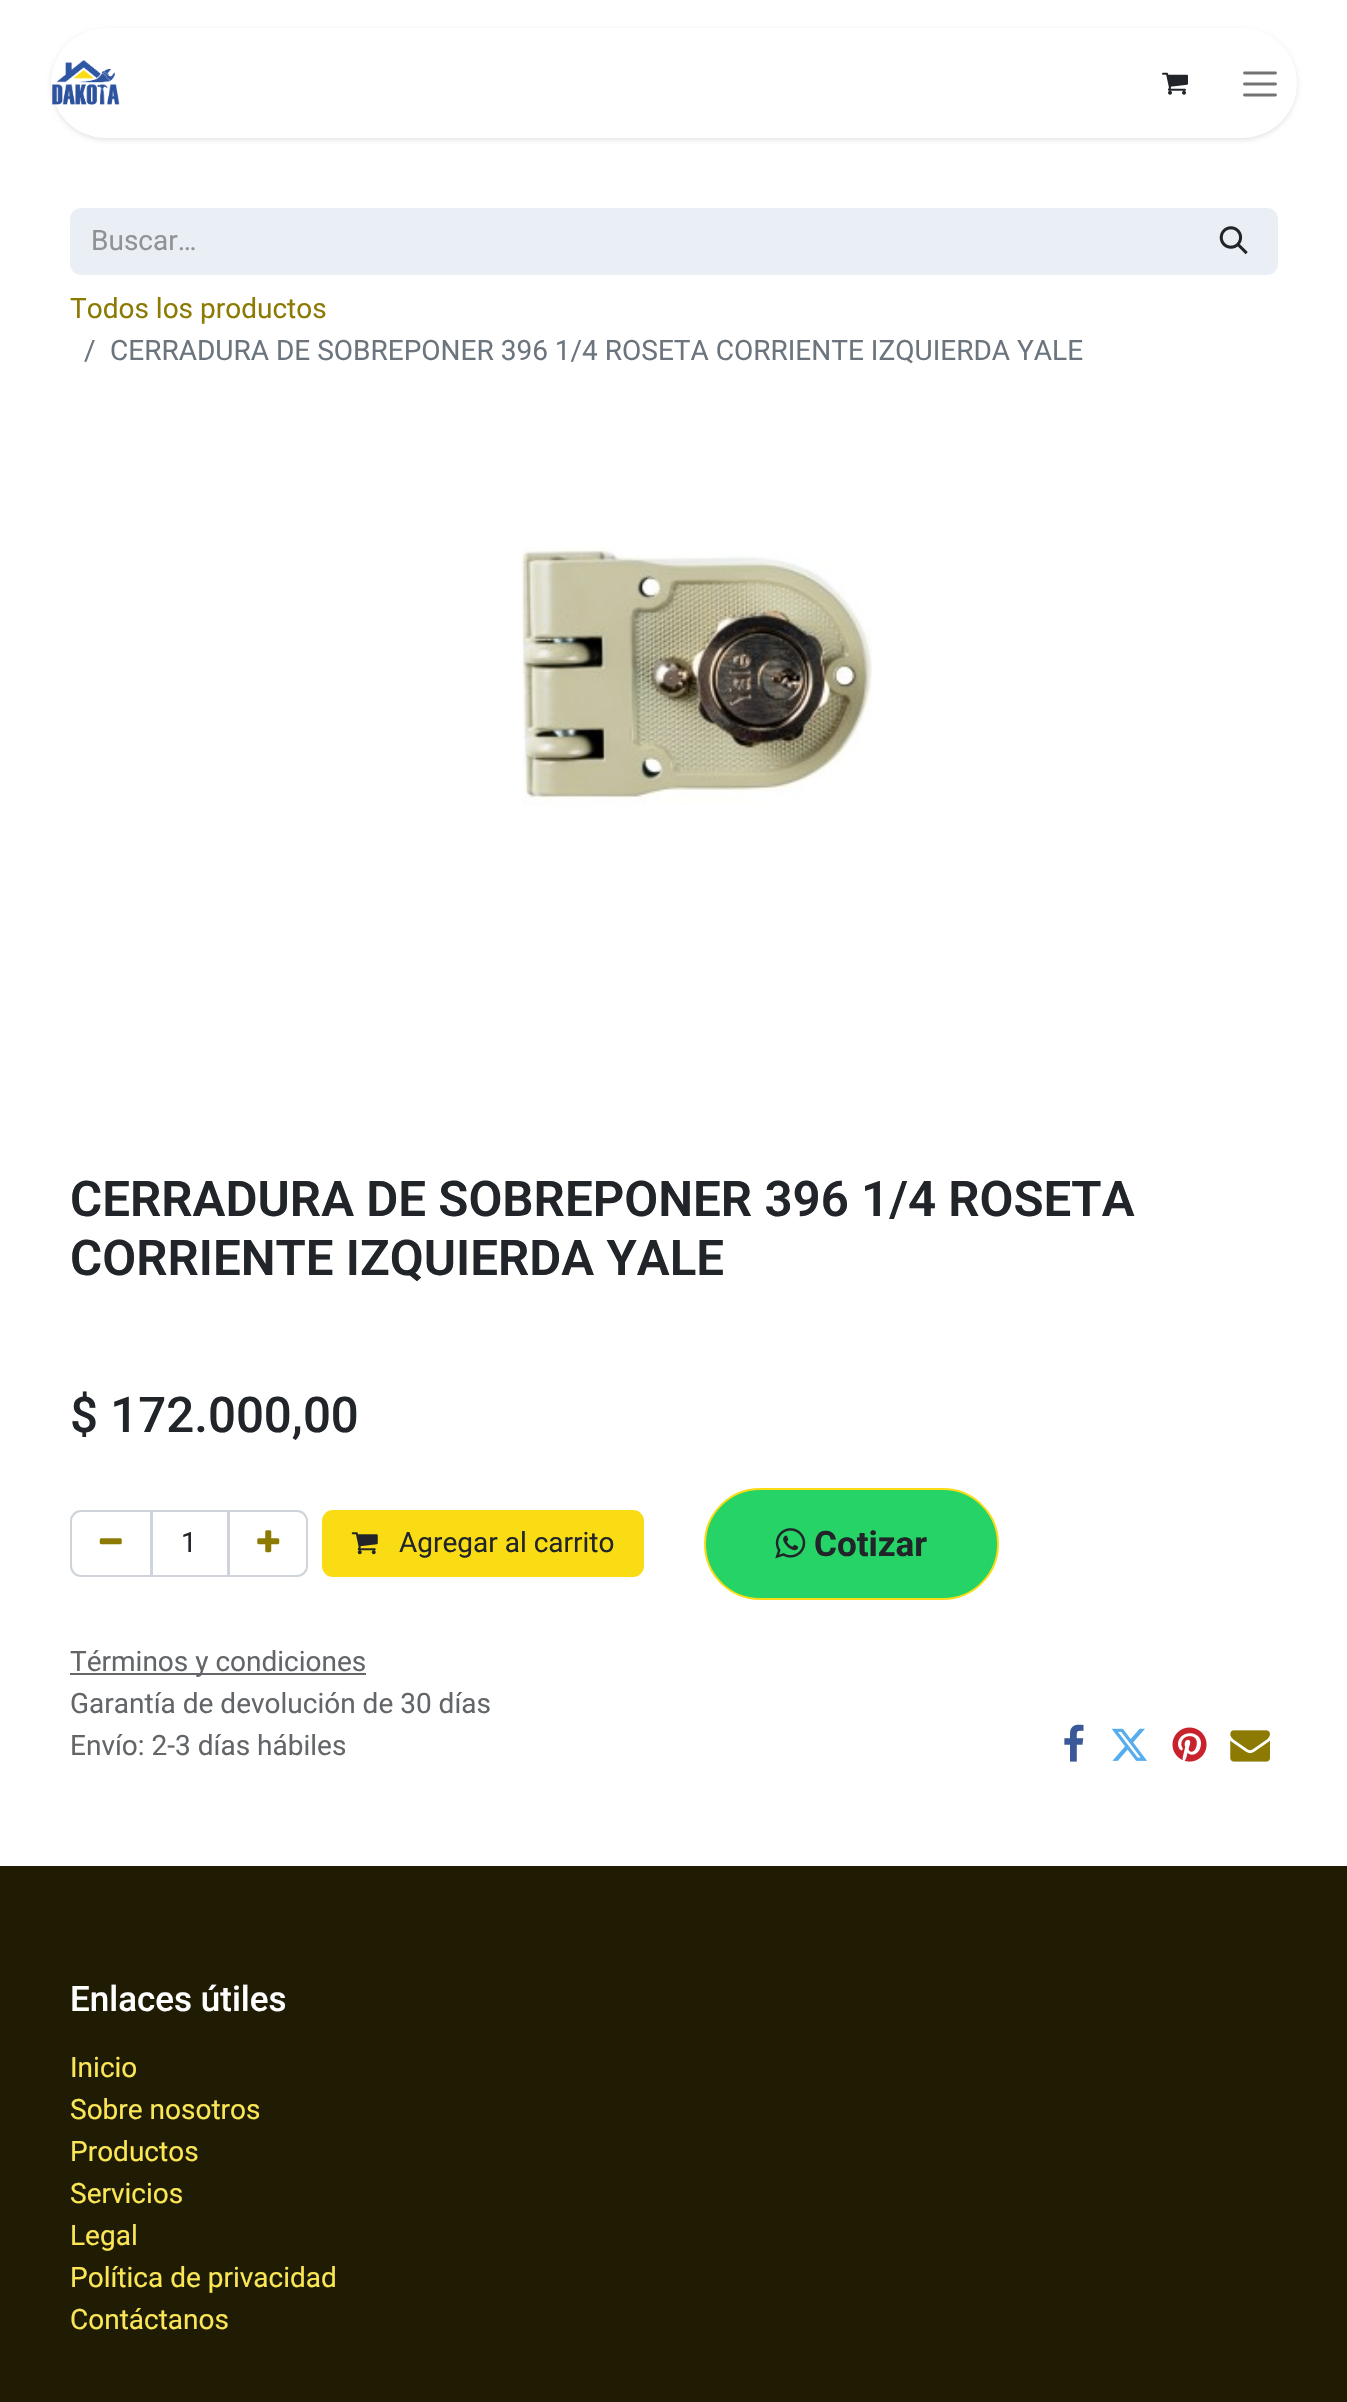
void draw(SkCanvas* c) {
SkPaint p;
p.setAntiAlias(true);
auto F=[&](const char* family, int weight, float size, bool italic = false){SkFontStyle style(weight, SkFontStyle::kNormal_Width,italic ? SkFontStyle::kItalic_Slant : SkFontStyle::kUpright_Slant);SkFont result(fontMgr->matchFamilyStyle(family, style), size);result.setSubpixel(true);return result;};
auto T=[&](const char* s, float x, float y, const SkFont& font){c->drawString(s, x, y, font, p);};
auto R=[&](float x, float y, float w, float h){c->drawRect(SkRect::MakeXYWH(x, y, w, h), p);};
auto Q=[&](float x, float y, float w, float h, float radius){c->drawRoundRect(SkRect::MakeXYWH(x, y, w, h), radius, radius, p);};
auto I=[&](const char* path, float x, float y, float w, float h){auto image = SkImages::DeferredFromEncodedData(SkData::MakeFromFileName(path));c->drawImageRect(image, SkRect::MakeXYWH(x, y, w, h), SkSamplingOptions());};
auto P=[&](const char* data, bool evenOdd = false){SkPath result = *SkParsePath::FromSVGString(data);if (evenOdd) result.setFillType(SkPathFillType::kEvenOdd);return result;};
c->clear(0xffffffff);
p.setColor(0x1a000000);
p.setMaskFilter(SkMaskFilter::MakeBlur(kNormal_SkBlurStyle, 2.5));
c->drawRoundRect(SkRect::MakeXYWH(51,30,1246,110),55,55,p);
p.setMaskFilter(nullptr);
p.setColor(0xffffffff);
Q(51,28,1246,110,55);
I("1.png",52,60,68,45);
I("2.png",1162,72,26,23);
p.setStroke(true);
p.setStrokeWidth(2.8);
p.setStrokeCap(SkPaint::kRound_Cap);
p.setColor(0xff737373);
c->drawPath(P("M1244.5 73h31m-31 11h31m-31 11h31"),p);
p.setStroke(false);
p.setColor(0xffeaeef5);
c->drawPath(P("M81 208h1111v67h-1111c-6 0-11-5-11-11v-45c0-6 5-11 11-11z"),p);
auto f1 = F("Roboto",400,28);
p.setColor(0xff909294);
T("Buscar…",91,250,f1);
p.setColor(0xffeaeef5);
c->drawPath(P("M1191 209h76c5.5 0 10 4.5 10 10v45c0 5.5-4.5 10-10 10h-76z"),p);
p.setStroke(true);
p.setStrokeWidth(2);
p.setStrokeCap(SkPaint::kButt_Cap);
c->drawPath(P("M1191 209h76c5.5 0 10 4.5 10 10v45c0 5.5-4.5 10-10 10h-76z"),p);
I("3.png",1219,226,29,29);
p.setStroke(false);
p.setColor(0xff8c7a03);
T("Todos los productos",70,318,f1);
p.setColor(0xff6c757d);
T("/",84,360,f1);
T("CERRADURA DE SOBREPONER 396 1/4 ROSETA CORRIENTE IZQUIERDA YALE",110,360,f1);
I("4.png",521,547,351,259);
auto f2 = F("Roboto",600,49.25);
p.setColor(0xff212529);
T("CERRADURA DE SOBREPONER 396 1/4 ROSETA",70,1216,f2);
T("CORRIENTE IZQUIERDA YALE",70,1275,f2);
auto f3 = F("Roboto",500,49.25);
T("$ 172.000,00",70,1432,f3);
p.setStroke(true);
p.setColor(0xffced4da);
c->drawRect(SkRect::MakeXYWH(152,1511,76,65),p);
c->drawPath(P("M81 1511h70v65h-70c-5.5 0-10-4.5-10-10v-45c0-5.5 4.5-10 10-10z"),p);
I("5.png",99,1538,23,7);
p.setStroke(false);
p.setColor(0xff212529);
T("1",181,1552,f1);
p.setStroke(true);
p.setColor(0xffced4da);
c->drawPath(P("M229 1511h68c5.5 0 10 4.5 10 10v45c0 5.5-4.5 10-10 10h-68z"),p);
I("6.png",257,1530,23,23);
p.setStroke(false);
p.setColor(0xfffadc15);
c->drawRoundRect(SkRect::MakeXYWH(323,1511,320,65),10,10,p);
p.setStroke(true);
c->drawRoundRect(SkRect::MakeXYWH(323,1511,320,65),10,10,p);
I("7.png",351,1532,27,23);
p.setStroke(false);
p.setColor(0xff212529);
T("Agregar al carrito",399,1552,f1);
p.setColor(0xff25d366);
c->drawRoundRect(SkRect::MakeXYWH(705,1489,293,110),55,55,p);
p.setStroke(true);
p.setColor(0xfffadc15);
c->drawRoundRect(SkRect::MakeXYWH(705,1489,293,110),55,55,p);
I("8.png",775,1528,31,31);
auto f4 = F("Roboto",700,35);
p.setStroke(false);
p.setColor(0xff212529);
T("Cotizar",814,1556,f4);
p.setColor(0xff646669);
R(70,1673,296,2);
p.setColor(0xff636669);
T("Términos y condiciones",70,1671,f1);
T("Garantía de devolución de 30 días",70,1713,f1);
T("Envío: 2-3 días hábiles",70,1755,f1);
I("9.png",1064,1724,20,38);
I("10.png",1111,1728,36,33);
I("11.png",1172,1727,35,35);
I("12.png",1230,1730,40,32);
p.setColor(0xff1f1c03);
R(0,1866,1347,536);
auto f5 = F("Roboto",500,35);
p.setColor(0xffffffff);
T("Enlaces útiles",70,2011,f5);
p.setColor(0xfffbe656);
T("Inicio",70,2077,f1);
T("Sobre nosotros",70,2119,f1);
T("Productos",70,2161,f1);
T("Servicios",70,2203,f1);
T("Legal",70,2245,f1);
T("Política de privacidad",70,2287,f1);
T("Contáctanos",70,2329,f1);
}
